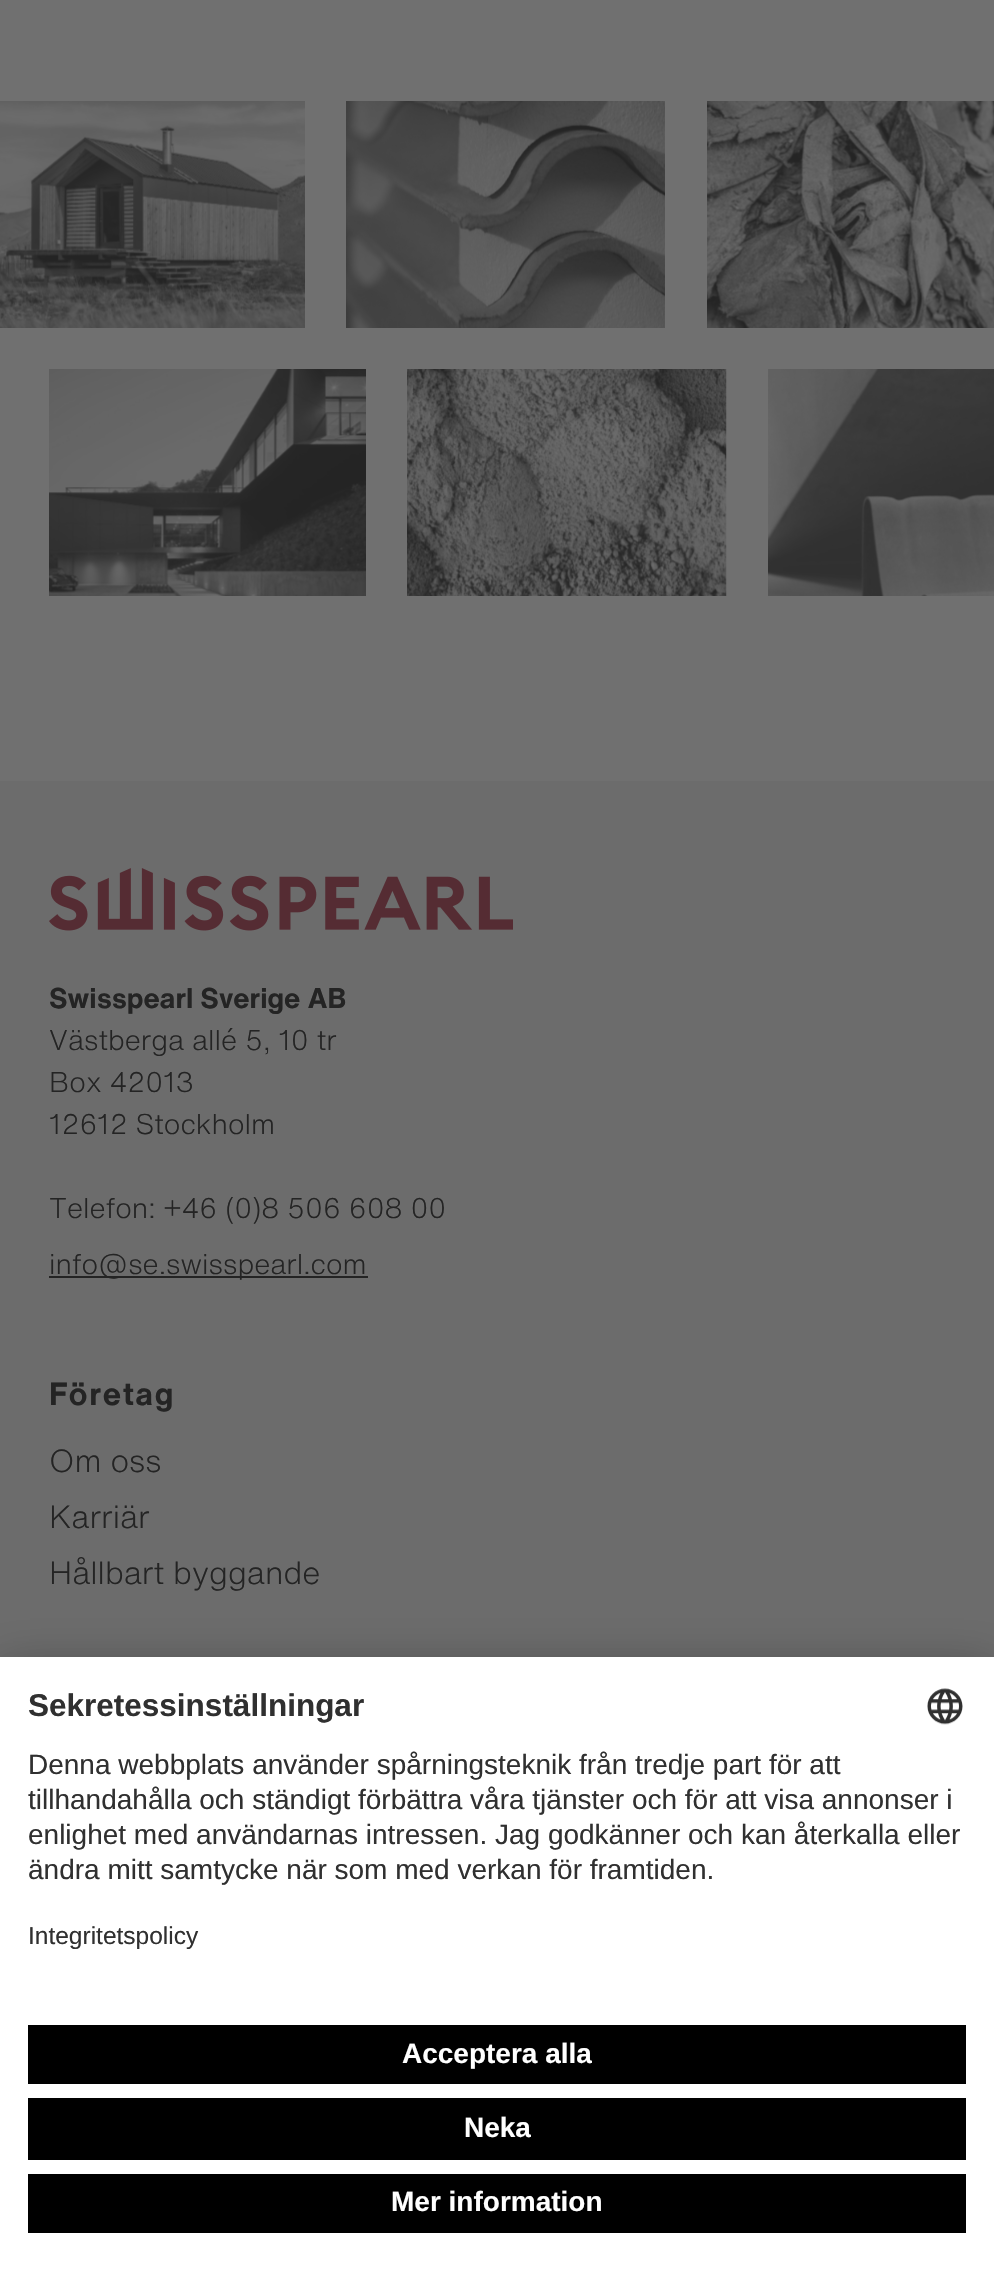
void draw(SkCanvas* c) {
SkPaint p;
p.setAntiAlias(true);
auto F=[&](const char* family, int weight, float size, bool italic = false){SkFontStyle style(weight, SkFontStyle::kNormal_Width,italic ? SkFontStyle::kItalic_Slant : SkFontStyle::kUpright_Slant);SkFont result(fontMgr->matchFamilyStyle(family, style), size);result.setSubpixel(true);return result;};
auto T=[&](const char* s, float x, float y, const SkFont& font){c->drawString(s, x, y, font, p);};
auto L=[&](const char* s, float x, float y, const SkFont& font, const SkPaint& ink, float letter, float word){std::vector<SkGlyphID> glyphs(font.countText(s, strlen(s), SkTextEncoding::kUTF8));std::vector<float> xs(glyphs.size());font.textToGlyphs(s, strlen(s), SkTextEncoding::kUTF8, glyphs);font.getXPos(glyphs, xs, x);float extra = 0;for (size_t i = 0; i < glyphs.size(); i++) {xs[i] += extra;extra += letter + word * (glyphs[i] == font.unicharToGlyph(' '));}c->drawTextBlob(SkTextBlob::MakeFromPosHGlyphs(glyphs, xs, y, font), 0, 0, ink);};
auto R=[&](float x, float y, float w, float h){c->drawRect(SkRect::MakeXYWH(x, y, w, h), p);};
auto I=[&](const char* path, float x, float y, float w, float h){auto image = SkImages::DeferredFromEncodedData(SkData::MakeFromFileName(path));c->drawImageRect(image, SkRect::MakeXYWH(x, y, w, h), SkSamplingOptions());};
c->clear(0xff707070);
I("1.png",0,101,305,227);
I("2.png",346,101,319,227);
I("3.png",707,101,287,227);
I("4.png",49,369,317,227);
I("5.png",407,369,320,227);
I("6.png",768,369,226,227);
p.setColor(0xff6c6c6c);
R(0,781,994,876);
I("7.png",49,868,464,63);
auto f1 = F("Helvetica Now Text",700,28);
p.setColor(0xff242424);
T("Swisspearl Sverige AB",49,1008,f1);
auto f2 = F("Helvetica Now Text",300,28);
T("Västberga allé 5, 10 tr",49,1050,f2);
T("Box 42013",49,1092,f2);
T("12612 Stockholm",49,1134,f2);
T("Telefon: +46 (0)8 506 608 00",49,1218,f2);
R(49,1276,319,2);
T("info@se.swisspearl.com",49,1274,f2);
auto f3 = F("Helvetica Now Text",700,31.5);
L("Företag",49,1405,f3,p,1.75,0);
auto f4 = F("Helvetica Now Text",300,31.5);
T("Om oss",49,1472,f4);
T("Karriär",49,1528,f4);
T("Hållbart byggande",49,1584,f4);
p.setColor(0x4d000000);
p.setMaskFilter(SkMaskFilter::MakeBlur(kNormal_SkBlurStyle, 24.5));
c->drawRect(SkRect::MakeXYWH(0,1692,994,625),p);
p.setMaskFilter(nullptr);
p.setColor(0x38000000);
p.setMaskFilter(SkMaskFilter::MakeBlur(kNormal_SkBlurStyle, 23));
c->drawRect(SkRect::MakeXYWH(0,1666,994,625),p);
p.setMaskFilter(nullptr);
p.setColor(0xffffffff);
R(0,1657,994,624);
auto f5 = F("Liberation Sans",700,31.5);
p.setColor(0xff303030);
T("Sekretessinställningar",28,1716,f5);
I("8.png",927,1688,36,37);
auto f6 = F("Liberation Sans",400,28);
T("Denna webbplats använder spårningsteknik från tredje part för att",28,1774,f6);
T("tillhandahålla och ständigt förbättra våra tjänster och för att visa annonser i",28,1809,f6);
T("enlighet med användarnas intressen. Jag godkänner och kan återkalla eller",28,1844,f6);
T("ändra mitt samtycke när som med verkan för framtiden.",28,1879,f6);
auto f7 = F("Liberation Sans",400,24.5);
T("Integritetspolicy",28,1944,f7);
p.setColor(0xff000000);
R(28,2025,938,59);
auto f8 = F("Liberation Sans",700,28);
p.setColor(0xffffffff);
T("Acceptera alla",402,2063,f8);
p.setColor(0xff000000);
R(28,2098,938,62);
p.setColor(0xffffffff);
T("Neka",464,2137,f8);
p.setColor(0xff000000);
R(28,2174,938,59);
p.setColor(0xffffffff);
T("Mer information",391,2211,f8);
}
